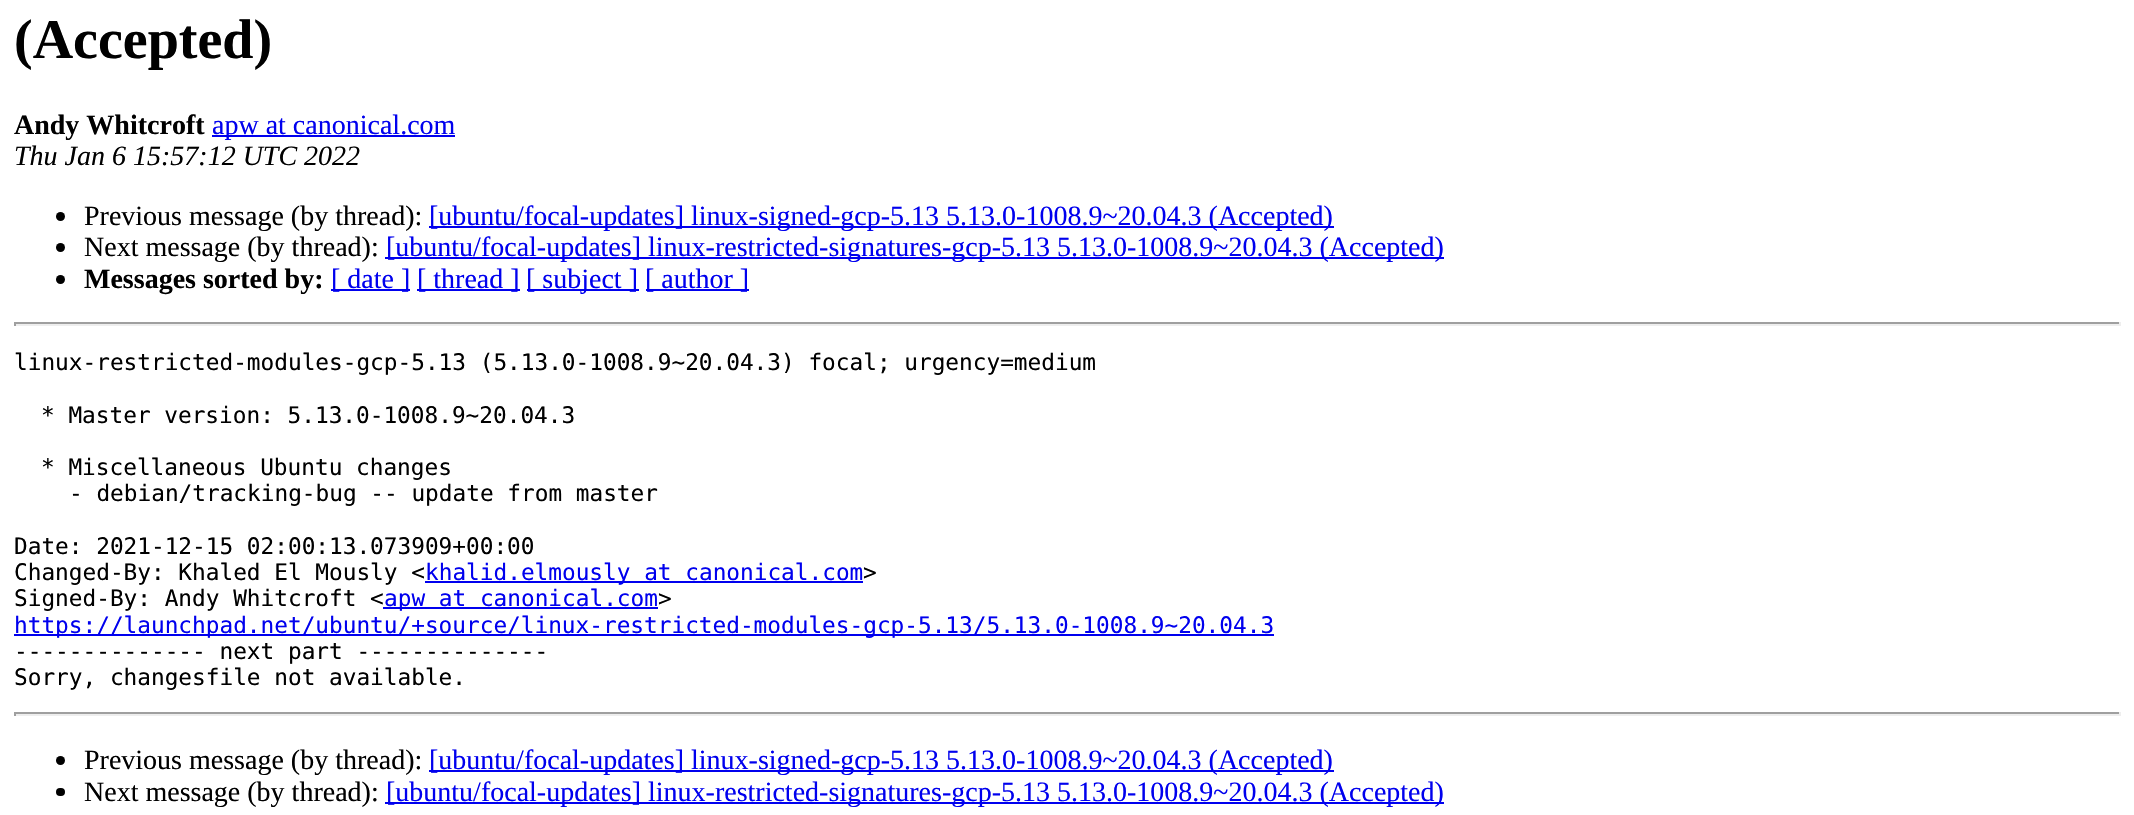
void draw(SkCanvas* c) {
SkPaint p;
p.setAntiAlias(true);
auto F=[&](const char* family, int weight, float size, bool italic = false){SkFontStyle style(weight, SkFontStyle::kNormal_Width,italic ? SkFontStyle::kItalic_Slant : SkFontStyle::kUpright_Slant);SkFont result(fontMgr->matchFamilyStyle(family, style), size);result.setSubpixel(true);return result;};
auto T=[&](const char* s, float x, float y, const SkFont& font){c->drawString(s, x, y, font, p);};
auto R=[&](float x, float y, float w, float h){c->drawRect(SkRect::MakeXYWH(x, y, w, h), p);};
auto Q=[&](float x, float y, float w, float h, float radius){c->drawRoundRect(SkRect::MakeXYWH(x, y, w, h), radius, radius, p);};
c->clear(0xffffffff);
auto f1 = F("Liberation Serif",700,56);
p.setColor(0xff000000);
T("(Accepted)",14,58,f1);
auto f2 = F("Liberation Serif",700,28);
T("Andy Whitcroft",14,134,f2);
p.setColor(0xff0000ee);
R(212,135,243,2);
auto f3 = F("Liberation Serif",400,28);
T("apw at canonical.com",212,134,f3);
auto f4 = F("Liberation Serif",400,28,true);
p.setColor(0xff000000);
T("Thu Jan 6 15:57:12 UTC 2022",14,165,f4);
c->drawCircle(60.5,216.5,4.5,p);
T("Previous message (by thread):",84,225,f3);
p.setColor(0xff0000ee);
R(429,226,905,2);
T("[ubuntu/focal-updates] linux-signed-gcp-5.13 5.13.0-1008.9~20.04.3 (Accepted)",429,225,f3);
p.setColor(0xff000000);
c->drawCircle(60.5,247.5,4.5,p);
T("Next message (by thread):",84,256,f3);
p.setColor(0xff0000ee);
R(385,257,1059,2);
T("[ubuntu/focal-updates] linux-restricted-signatures-gcp-5.13 5.13.0-1008.9~20.04.3 (Accepted)",386,256,f3);
p.setColor(0xff000000);
c->drawCircle(60.5,279.5,4.5,p);
T("Messages sorted by:",84,288,f2);
p.setColor(0xff0000ee);
R(331,289,79,2);
T("[ date ]",331,288,f3);
R(417,289,103,2);
T("[ thread ]",417,288,f3);
R(527,289,112,2);
T("[ subject ]",526,288,f3);
R(646,289,103,2);
T("[ author ]",645,288,f3);
p.setColor(0xff9f9f9f);
R(14,322,2107,2);
p.setColor(0xffeeeeee);
R(2119,322,2,4);
R(14,324,2107,2);
p.setColor(0xff9f9f9f);
R(14,322,2,4);
auto f5 = F("DejaVu Sans Mono",400,22.75);
p.setColor(0xff000000);
T("linux-restricted-modules-gcp-5.13 (5.13.0-1008.9~20.04.3) focal; urgency=medium",14,370,f5);
T("* Master version: 5.13.0-1008.9~20.04.3",41,423,f5);
T("* Miscellaneous Ubuntu changes",41,475,f5);
T("- debian/tracking-bug -- update from master",69,501,f5);
T("Date: 2021-12-15 02:00:13.073909+00:00",14,554,f5);
T("Changed-By: Khaled El Mously <",14,580,f5);
p.setColor(0xff0000ee);
R(425,581,438,2);
T("khalid.elmously at canonical.com",425,580,f5);
p.setColor(0xff000000);
T(">",863,580,f5);
T("Signed-By: Andy Whitcroft <",14,606,f5);
p.setColor(0xff0000ee);
R(383,607,275,2);
T("apw at canonical.com",384,606,f5);
p.setColor(0xff000000);
T(">",658,606,f5);
p.setColor(0xff0000ee);
R(14,634,1260,2);
T("https://launchpad.net/ubuntu/+source/linux-restricted-modules-gcp-5.13/5.13.0-1008.9~20.04.3",14,633,f5);
p.setColor(0xff000000);
T("-------------- next part --------------",14,659,f5);
T("Sorry, changesfile not available.",14,685,f5);
p.setColor(0xff9f9f9f);
R(14,712,2107,2);
p.setColor(0xffeeeeee);
R(2119,712,2,4);
R(14,714,2107,2);
p.setColor(0xff9f9f9f);
R(14,712,2,4);
p.setColor(0xff000000);
c->drawCircle(60.5,760.5,4.5,p);
T("Previous message (by thread):",84,769,f3);
p.setColor(0xff0000ee);
R(429,770,905,2);
T("[ubuntu/focal-updates] linux-signed-gcp-5.13 5.13.0-1008.9~20.04.3 (Accepted)",429,769,f3);
p.setColor(0xff000000);
Q(56,788,9,8,4);
T("Next message (by thread):",84,801,f3);
p.setColor(0xff0000ee);
R(385,802,1059,2);
T("[ubuntu/focal-updates] linux-restricted-signatures-gcp-5.13 5.13.0-1008.9~20.04.3 (Accepted)",386,801,f3);
}
